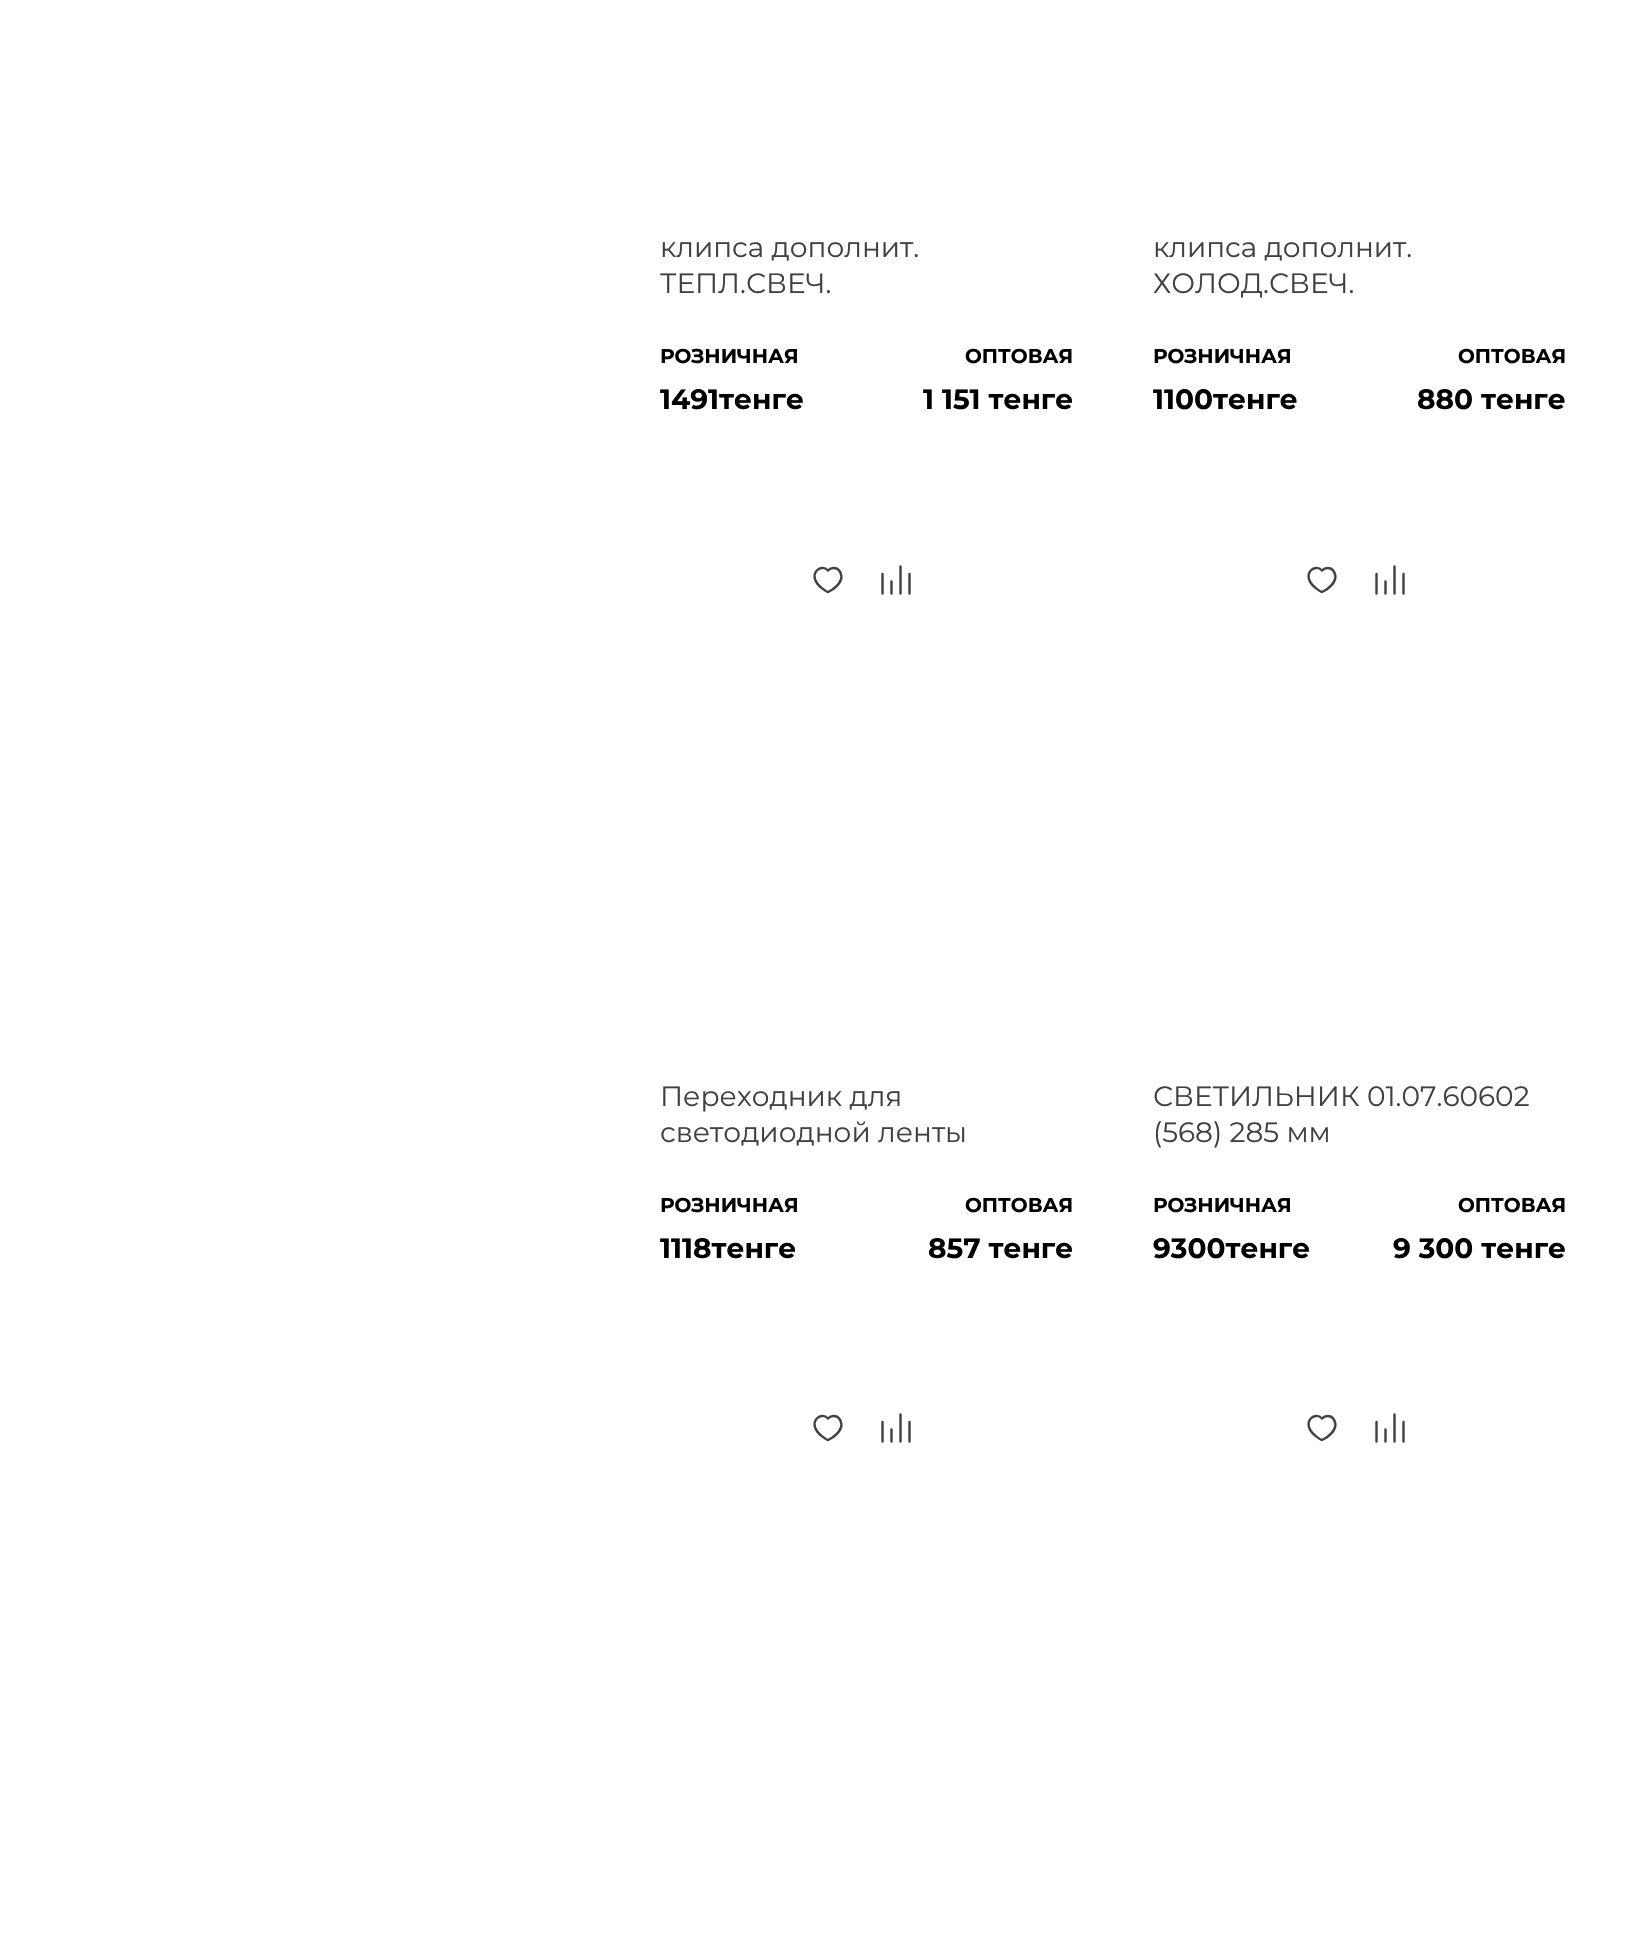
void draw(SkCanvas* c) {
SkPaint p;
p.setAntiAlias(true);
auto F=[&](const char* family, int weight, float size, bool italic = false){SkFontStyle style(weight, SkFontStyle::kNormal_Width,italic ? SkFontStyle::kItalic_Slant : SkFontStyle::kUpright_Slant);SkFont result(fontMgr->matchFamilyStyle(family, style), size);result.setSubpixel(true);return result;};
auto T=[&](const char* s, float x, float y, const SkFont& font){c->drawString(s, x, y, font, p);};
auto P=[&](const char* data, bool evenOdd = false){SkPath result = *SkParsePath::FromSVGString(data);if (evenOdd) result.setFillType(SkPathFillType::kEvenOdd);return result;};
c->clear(0xffffffff);
auto f1 = F("Montserrat",400,28);
p.setColor(0xff404040);
T("клипса дополнит.",660,257,f1);
T("ТЕПЛ.СВЕЧ.",660,293,f1);
auto f2 = F("Montserrat",700,20);
p.setColor(0xff000000);
T("РОЗНИЧНАЯ",660,363,f2);
auto f3 = F("Montserrat",700,28);
T("1491тенге",660,409,f3);
T("ОПТОВАЯ",965,363,f2);
T("1 151 тенге",923,409,f3);
p.setColor(0xff404040);
T("клипса дополнит.",1153,257,f1);
T("ХОЛОД.СВЕЧ.",1153,293,f1);
p.setColor(0xff000000);
T("РОЗНИЧНАЯ",1153,363,f2);
T("1100тенге",1153,409,f3);
T("ОПТОВАЯ",1458,363,f2);
T("880 тенге",1417,409,f3);
p.setStroke(true);
p.setStrokeWidth(2.4);
p.setStrokeCap(SkPaint::kRound_Cap);
p.setStrokeJoin(SkPaint::kRound_Join);
p.setColor(0xff404040);
c->drawPath(P("M833.5 568c6 0 9 6.5 7.5 11.5c-1.5 4.5-5 7.5-8.5 10l-4.5 2.5c-1.5 0-6-4-7-4.5c-15-13 0-25 7-17c1-1 3-2.5 5.5-2.5z"),p);
c->drawPath(P("M891.5 581.5v12m18-19.5v19.5m-9-27v27m-18-19.5v19.5"),p);
p.setStroke(false);
T("Переходник для",660,1106,f1);
T("светодиодной ленты",660,1142,f1);
p.setColor(0xff000000);
T("РОЗНИЧНАЯ",660,1212,f2);
T("1118тенге",660,1258,f3);
T("ОПТОВАЯ",965,1212,f2);
T("857 тенге",928,1258,f3);
p.setStroke(true);
p.setColor(0xff404040);
c->drawPath(P("M1327.5 568c6 0 9 6.5 7.5 11.5c-1.5 4.5-5 7.5-8.5 10l-4.5 2.5c-1.5 0-6-4-7-4.5c-15-13 0-25 7-17c1-1 3-2.5 5.5-2.5z"),p);
c->drawPath(P("M1385.5 581.5v12m18-19.5v19.5m-9-27v27m-18-19.5v19.5"),p);
p.setStroke(false);
T("СВЕТИЛЬНИК 01.07.60602",1153,1106,f1);
T("(568) 285 мм",1153,1142,f1);
p.setColor(0xff000000);
T("РОЗНИЧНАЯ",1153,1212,f2);
T("9300тенге",1153,1258,f3);
T("ОПТОВАЯ",1458,1212,f2);
T("9 300 тенге",1393,1258,f3);
p.setStroke(true);
p.setColor(0xff404040);
c->drawPath(P("M833.5 1416c6 0 9 6.5 7.5 11.5c-1.5 4.5-5 7.5-8.5 10l-4.5 2.5c-1.5 0-6-4-7-4.5c-15-13 0-25 7-17c1-1 3-2.5 5.5-2.5z"),p);
c->drawPath(P("M891.5 1429.5v12m18-19.5v19.5m-9-27v27m-18-19.5v19.5"),p);
c->drawPath(P("M1327.5 1416c6 0 9 6.5 7.5 11.5c-1.5 4.5-5 7.5-8.5 10l-4.5 2.5c-1.5 0-6-4-7-4.5c-15-13 0-25 7-17c1-1 3-2.5 5.5-2.5z"),p);
c->drawPath(P("M1385.5 1429.5v12m18-19.5v19.5m-9-27v27m-18-19.5v19.5"),p);
}
